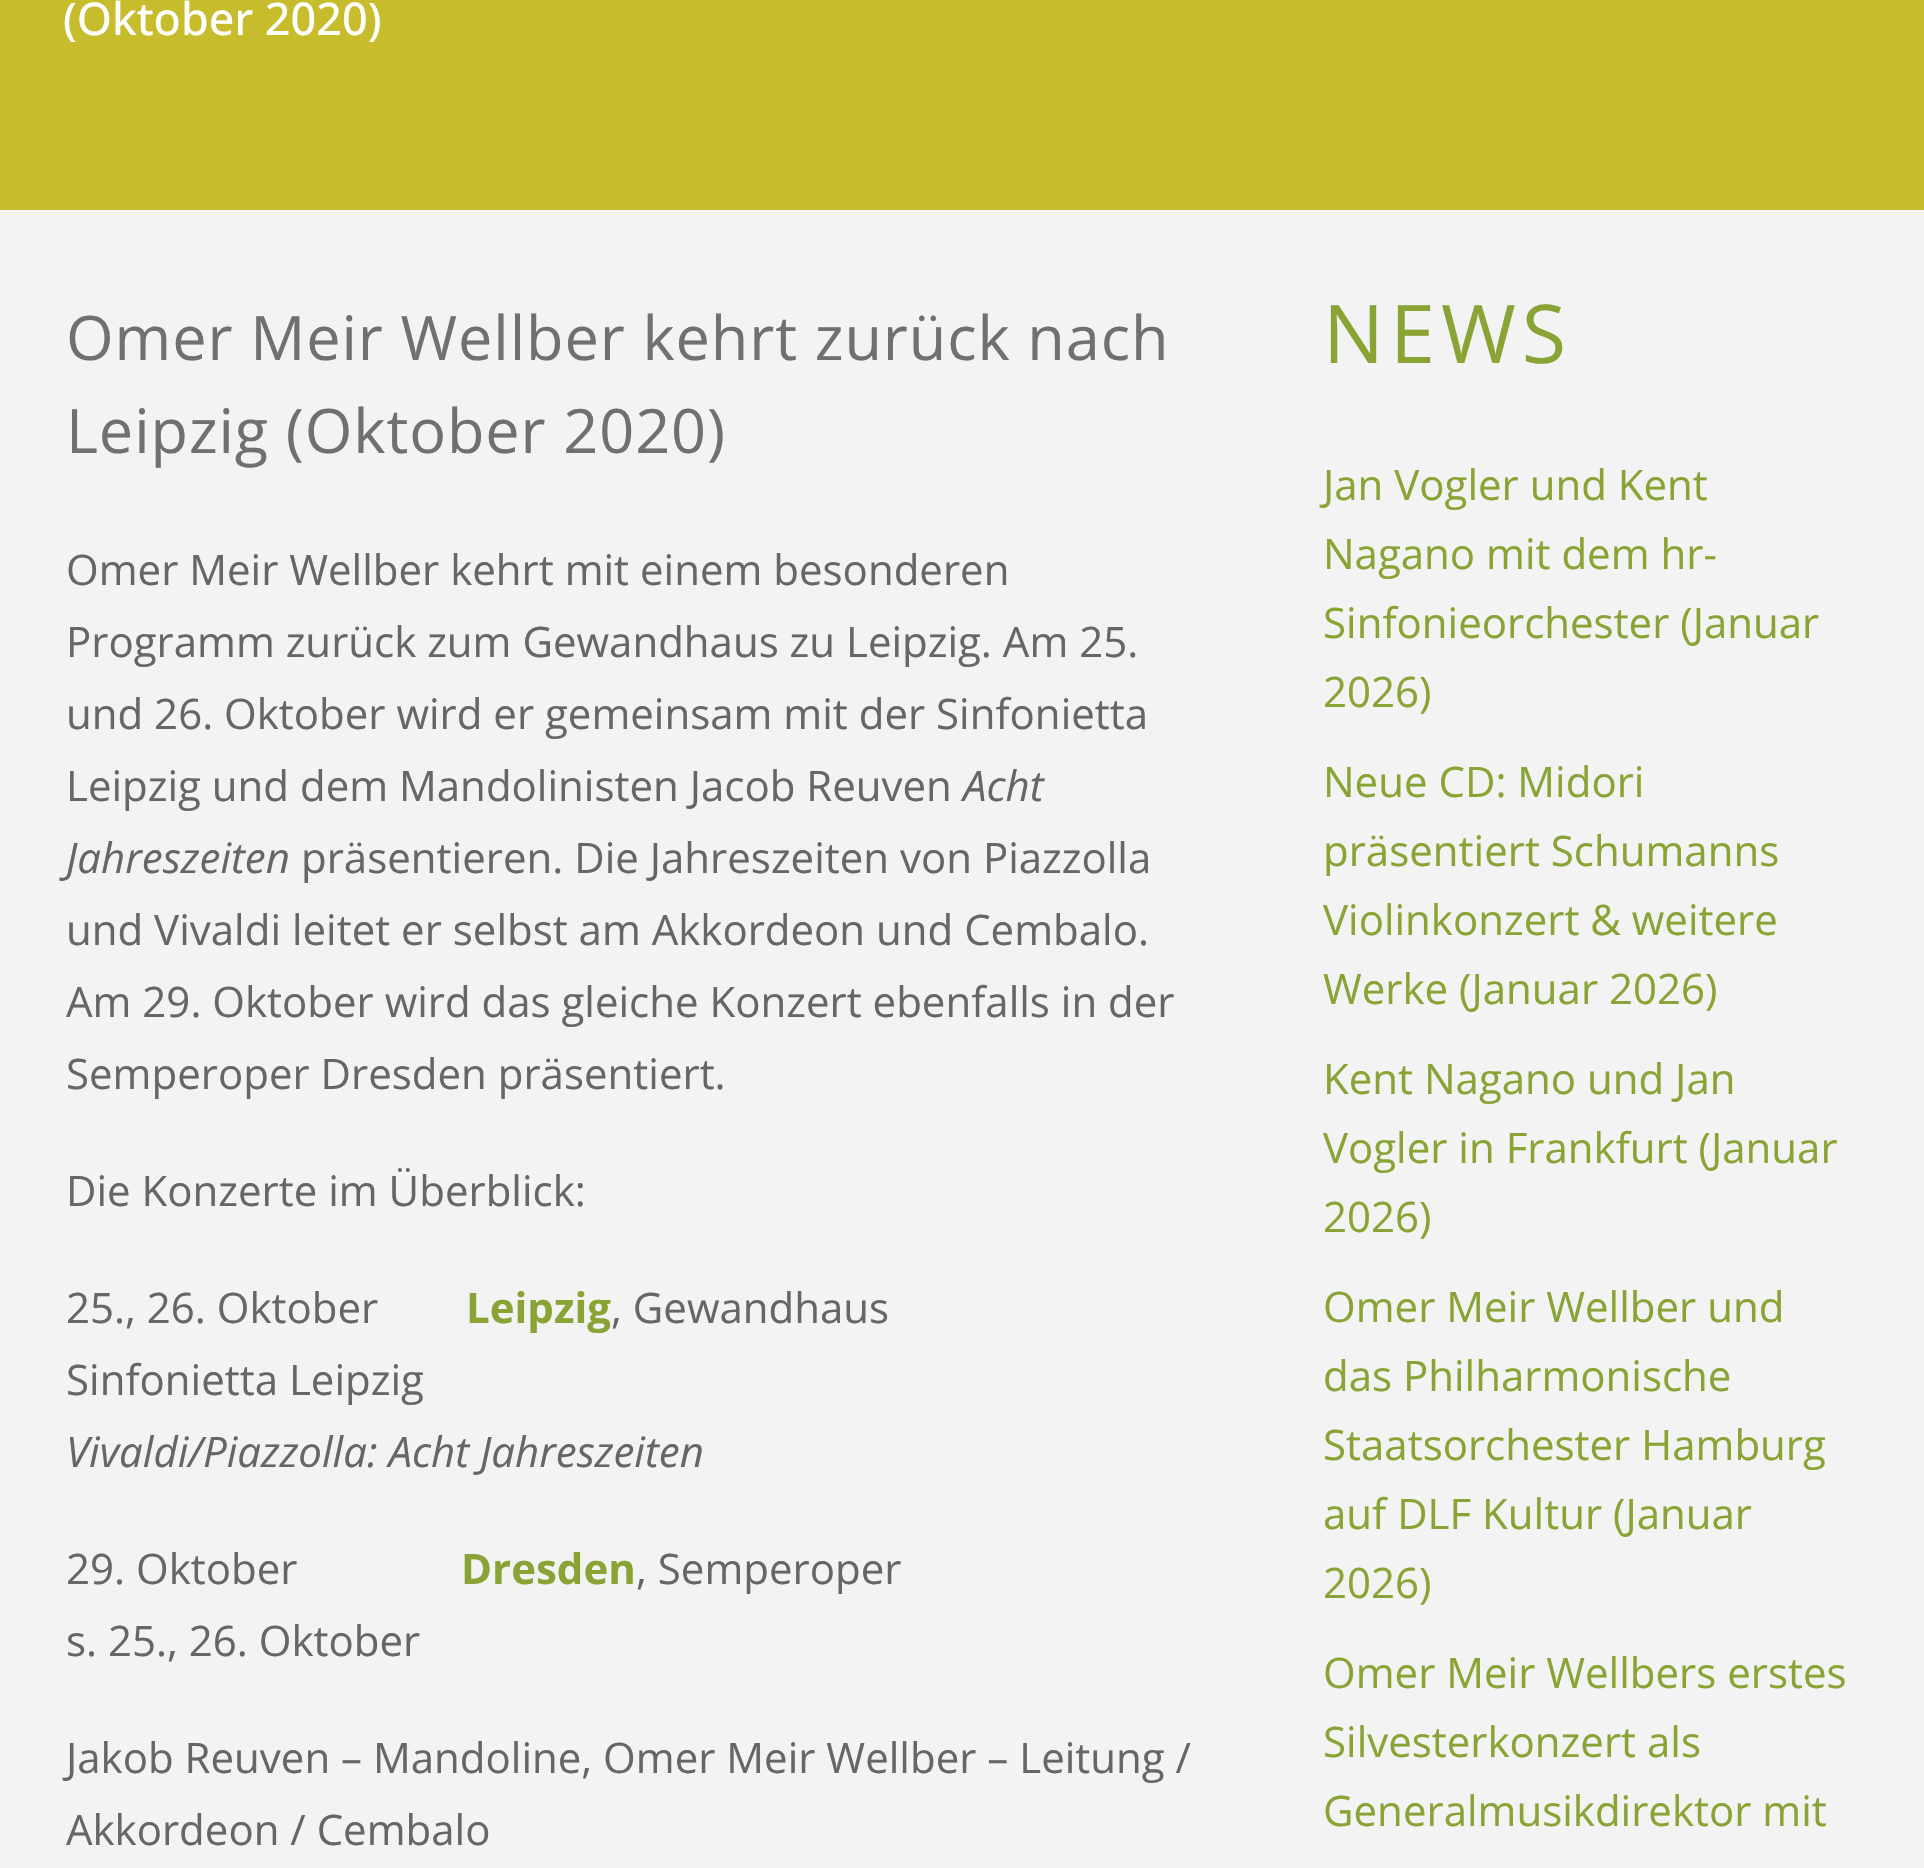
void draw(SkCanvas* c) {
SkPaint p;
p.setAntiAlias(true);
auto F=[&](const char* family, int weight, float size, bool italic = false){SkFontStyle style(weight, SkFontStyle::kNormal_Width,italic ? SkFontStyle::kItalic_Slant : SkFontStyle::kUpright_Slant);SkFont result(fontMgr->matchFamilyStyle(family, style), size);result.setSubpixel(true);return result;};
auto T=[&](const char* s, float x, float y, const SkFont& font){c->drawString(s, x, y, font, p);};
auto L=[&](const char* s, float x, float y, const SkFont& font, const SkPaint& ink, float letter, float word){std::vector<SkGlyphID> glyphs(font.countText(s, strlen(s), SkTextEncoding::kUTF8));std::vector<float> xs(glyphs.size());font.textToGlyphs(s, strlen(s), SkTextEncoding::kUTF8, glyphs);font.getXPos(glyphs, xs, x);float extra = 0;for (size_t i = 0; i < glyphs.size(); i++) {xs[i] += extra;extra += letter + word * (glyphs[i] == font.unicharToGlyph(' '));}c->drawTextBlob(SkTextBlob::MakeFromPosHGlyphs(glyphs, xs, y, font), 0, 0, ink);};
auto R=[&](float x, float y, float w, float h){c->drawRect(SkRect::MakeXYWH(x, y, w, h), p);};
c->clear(0xfff3f3f3);
p.setColor(0xffc7bd2c);
R(0,0,1924,210);
auto f1 = F("Open Sans",500,45);
p.setColor(0xffffffff);
T("(Oktober 2020)",63,35,f1);
auto f2 = F("Open Sans",400,61.25);
p.setColor(0xff707070);
L("Omer Meir Wellber kehrt zurück nach",66,360,f2,p,.9,0);
L("Leipzig (Oktober 2020)",66,453,f2,p,.9,0);
auto f3 = F("Open Sans",400,42);
p.setColor(0xff666666);
T("Omer Meir Wellber kehrt mit einem besonderen",66,585,f3);
T("Programm zurück zum Gewandhaus zu Leipzig. Am 25.",66,657,f3);
T("und 26. Oktober wird er gemeinsam mit der Sinfonietta",66,729,f3);
T("Leipzig und dem Mandolinisten Jacob Reuven",66,801,f3);
auto f4 = F("Open Sans",400,42,true);
T("Acht",963,801,f4);
T("Jahreszeiten",66,873,f4);
T("präsentieren. Die Jahreszeiten von Piazzolla",301,873,f3);
T("und Vivaldi leitet er selbst am Akkordeon und Cembalo.",66,945,f3);
T("Am 29. Oktober wird das gleiche Konzert ebenfalls in der",66,1017,f3);
T("Semperoper Dresden präsentiert.",66,1089,f3);
T("Die Konzerte im Überblick:",66,1206,f3);
T("25., 26. Oktober",66,1323,f3);
auto f5 = F("Open Sans",700,42);
p.setColor(0xff89a435);
T("Leipzig",466,1323,f5);
p.setColor(0xff666666);
T(", Gewandhaus",611,1323,f3);
T("Sinfonietta Leipzig",66,1395,f3);
T("Vivaldi/Piazzolla: Acht Jahreszeiten",66,1467,f4);
T("29. Oktober",66,1584,f3);
p.setColor(0xff89a435);
T("Dresden",461,1584,f5);
p.setColor(0xff666666);
T(", Semperoper",636,1584,f3);
T("s. 25., 26. Oktober",66,1656,f3);
T("Jakob Reuven – Mandoline, Omer Meir Wellber – Leitung /",66,1773,f3);
T("Akkordeon / Cembalo",66,1845,f3);
auto f6 = F("Open Sans",400,81);
p.setColor(0xff89a435);
L("NEWS",1323,363,f6,p,6,0);
T("Jan Vogler und Kent",1323,500,f3);
T("Nagano mit dem hr-",1323,569,f3);
T("Sinfonieorchester (Januar",1323,638,f3);
T("2026)",1323,707,f3);
T("Neue CD: Midori",1323,797,f3);
T("präsentiert Schumanns",1323,866,f3);
T("Violinkonzert & weitere",1323,935,f3);
T("Werke (Januar 2026)",1323,1004,f3);
T("Kent Nagano und Jan",1323,1094,f3);
T("Vogler in Frankfurt (Januar",1323,1163,f3);
T("2026)",1323,1232,f3);
T("Omer Meir Wellber und",1323,1322,f3);
T("das Philharmonische",1323,1391,f3);
T("Staatsorchester Hamburg",1323,1460,f3);
T("auf DLF Kultur (Januar",1323,1529,f3);
T("2026)",1323,1598,f3);
T("Omer Meir Wellbers erstes",1323,1688,f3);
T("Silvesterkonzert als",1323,1757,f3);
T("Generalmusikdirektor mit",1323,1826,f3);
}
